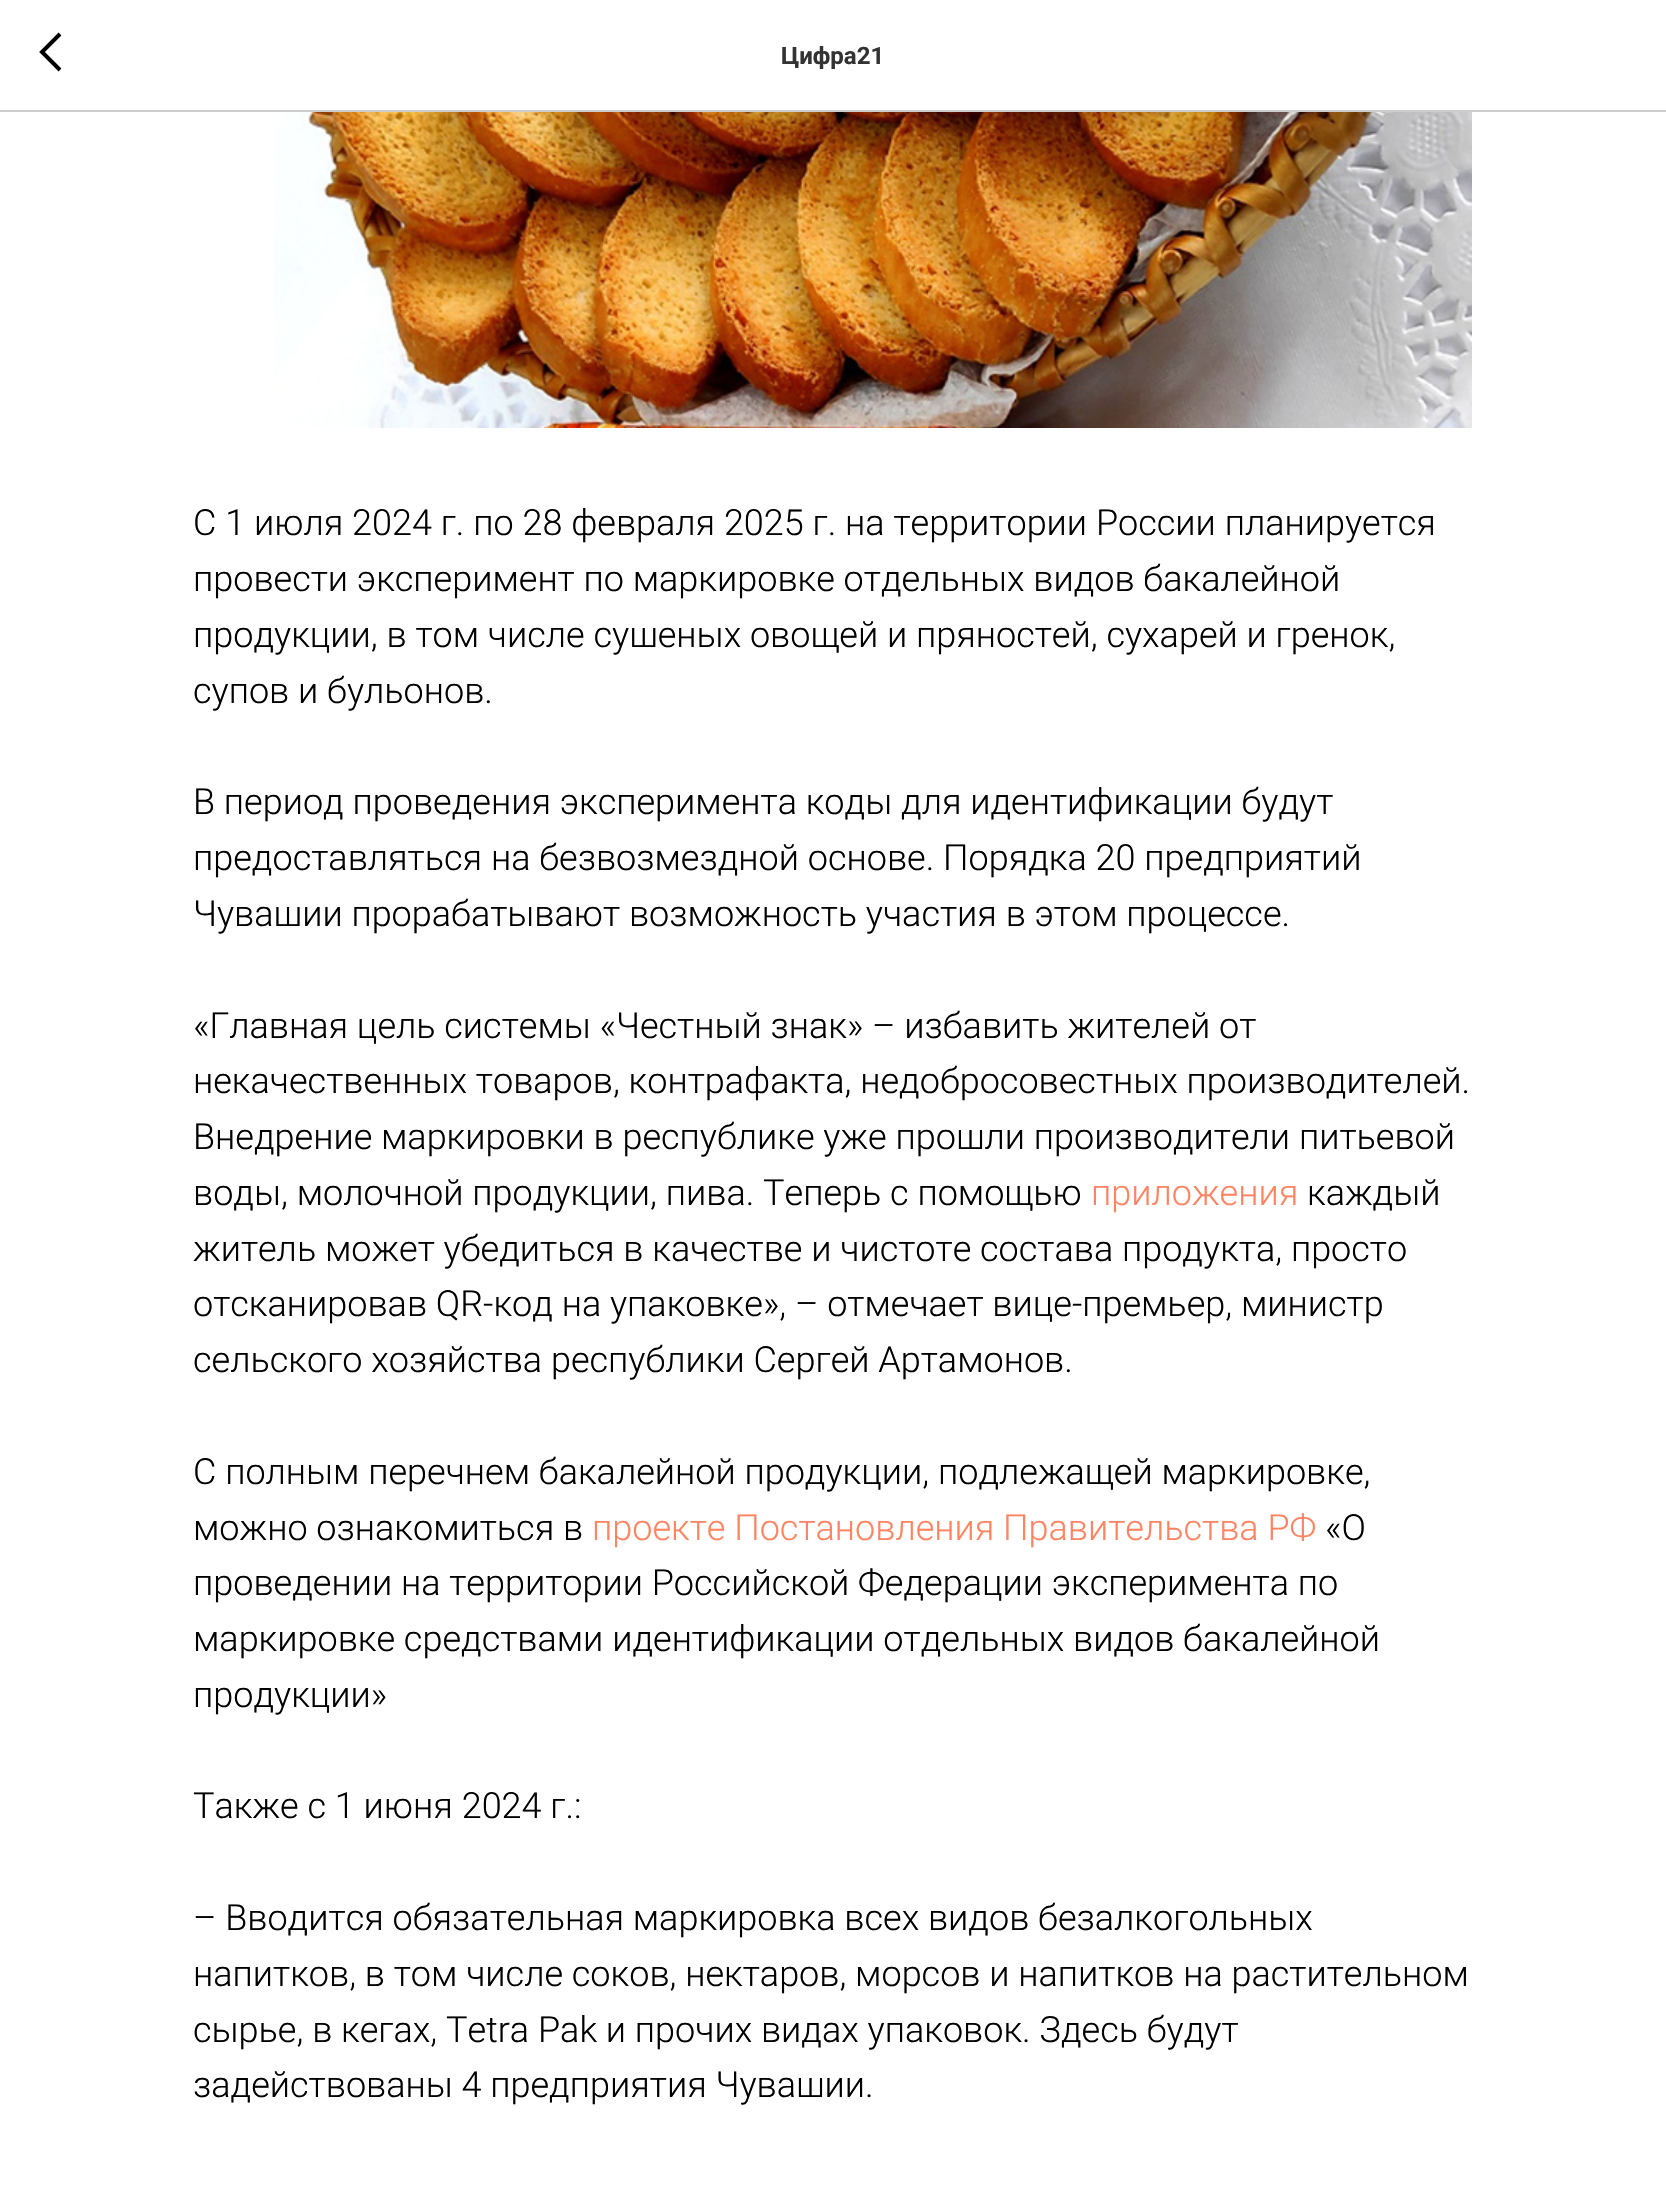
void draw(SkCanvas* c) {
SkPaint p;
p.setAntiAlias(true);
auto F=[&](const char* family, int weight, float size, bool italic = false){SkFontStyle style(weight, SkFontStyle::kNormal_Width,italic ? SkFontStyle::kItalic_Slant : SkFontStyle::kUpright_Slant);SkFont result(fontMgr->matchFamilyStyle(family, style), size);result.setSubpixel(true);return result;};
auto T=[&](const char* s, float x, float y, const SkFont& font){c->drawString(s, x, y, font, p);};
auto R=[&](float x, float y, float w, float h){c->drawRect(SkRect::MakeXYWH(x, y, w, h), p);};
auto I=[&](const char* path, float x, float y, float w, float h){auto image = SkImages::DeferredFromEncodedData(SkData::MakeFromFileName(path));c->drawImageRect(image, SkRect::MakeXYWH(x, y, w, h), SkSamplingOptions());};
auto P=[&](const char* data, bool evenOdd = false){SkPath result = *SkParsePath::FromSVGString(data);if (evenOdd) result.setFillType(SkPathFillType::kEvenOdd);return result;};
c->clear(0xffffffff);
p.setColor(0xffcccccc);
R(0,110,1666,2);
p.setStroke(true);
p.setStrokeWidth(4);
p.setColor(0xff000000);
c->drawPath(P("M60 70l-18-18l18-18"),p);
auto f1 = F("Roboto",700,24);
p.setStroke(false);
p.setColor(0xff333333);
T("Цифра21",781,64,f1);
I("1.png",274,112,1198,316);
auto f2 = F("Roboto",300,36);
p.setColor(0xff000000);
T("С 1 июля 2024 г. по 28 февраля 2025 г. на территории России планируется",193,535,f2);
T("провести эксперимент по маркировке отдельных видов бакалейной",193,591,f2);
T("продукции, в том числе сушеных овощей и пряностей, сухарей и гренок,",193,647,f2);
T("супов и бульонов.",193,703,f2);
T("В период проведения эксперимента коды для идентификации будут",193,814,f2);
T("предоставляться на безвозмездной основе. Порядка 20 предприятий",193,870,f2);
T("Чувашии прорабатывают возможность участия в этом процессе.",193,926,f2);
T("«Главная цель системы «Честный знак» – избавить жителей от",193,1038,f2);
T("некачественных товаров, контрафакта, недобросовестных производителей.",193,1093,f2);
T("Внедрение маркировки в республике уже прошли производители питьевой",193,1149,f2);
T("воды, молочной продукции, пива. Теперь с помощью",193,1205,f2);
p.setColor(0xffff8562);
T("приложения",1091,1205,f2);
p.setColor(0xff000000);
T("каждый",1307,1205,f2);
T("житель может убедиться в качестве и чистоте состава продукта, просто",193,1261,f2);
T("отсканировав QR-код на упаковке», – отмечает вице-премьер, министр",193,1316,f2);
T("сельского хозяйства республики Сергей Артамонов.",193,1372,f2);
T("С полным перечнем бакалейной продукции, подлежащей маркировке,",193,1484,f2);
T("можно ознакомиться в",193,1540,f2);
p.setColor(0xffff8562);
T("проекте Постановления Правительства РФ",592,1540,f2);
p.setColor(0xff000000);
T("«О",1325,1540,f2);
T("проведении на территории Российской Федерации эксперимента по",193,1595,f2);
T("маркировке средствами идентификации отдельных видов бакалейной",193,1651,f2);
T("продукции»",193,1707,f2);
T("Также с 1 июня 2024 г.:",193,1818,f2);
T("– Вводится обязательная маркировка всех видов безалкогольных",193,1930,f2);
T("напитков, в том числе соков, нектаров, морсов и напитков на растительном",193,1986,f2);
T("сырье, в кегах, Tetra Pak и прочих видах упаковок. Здесь будут",193,2042,f2);
T("задействованы 4 предприятия Чувашии.",193,2097,f2);
}
